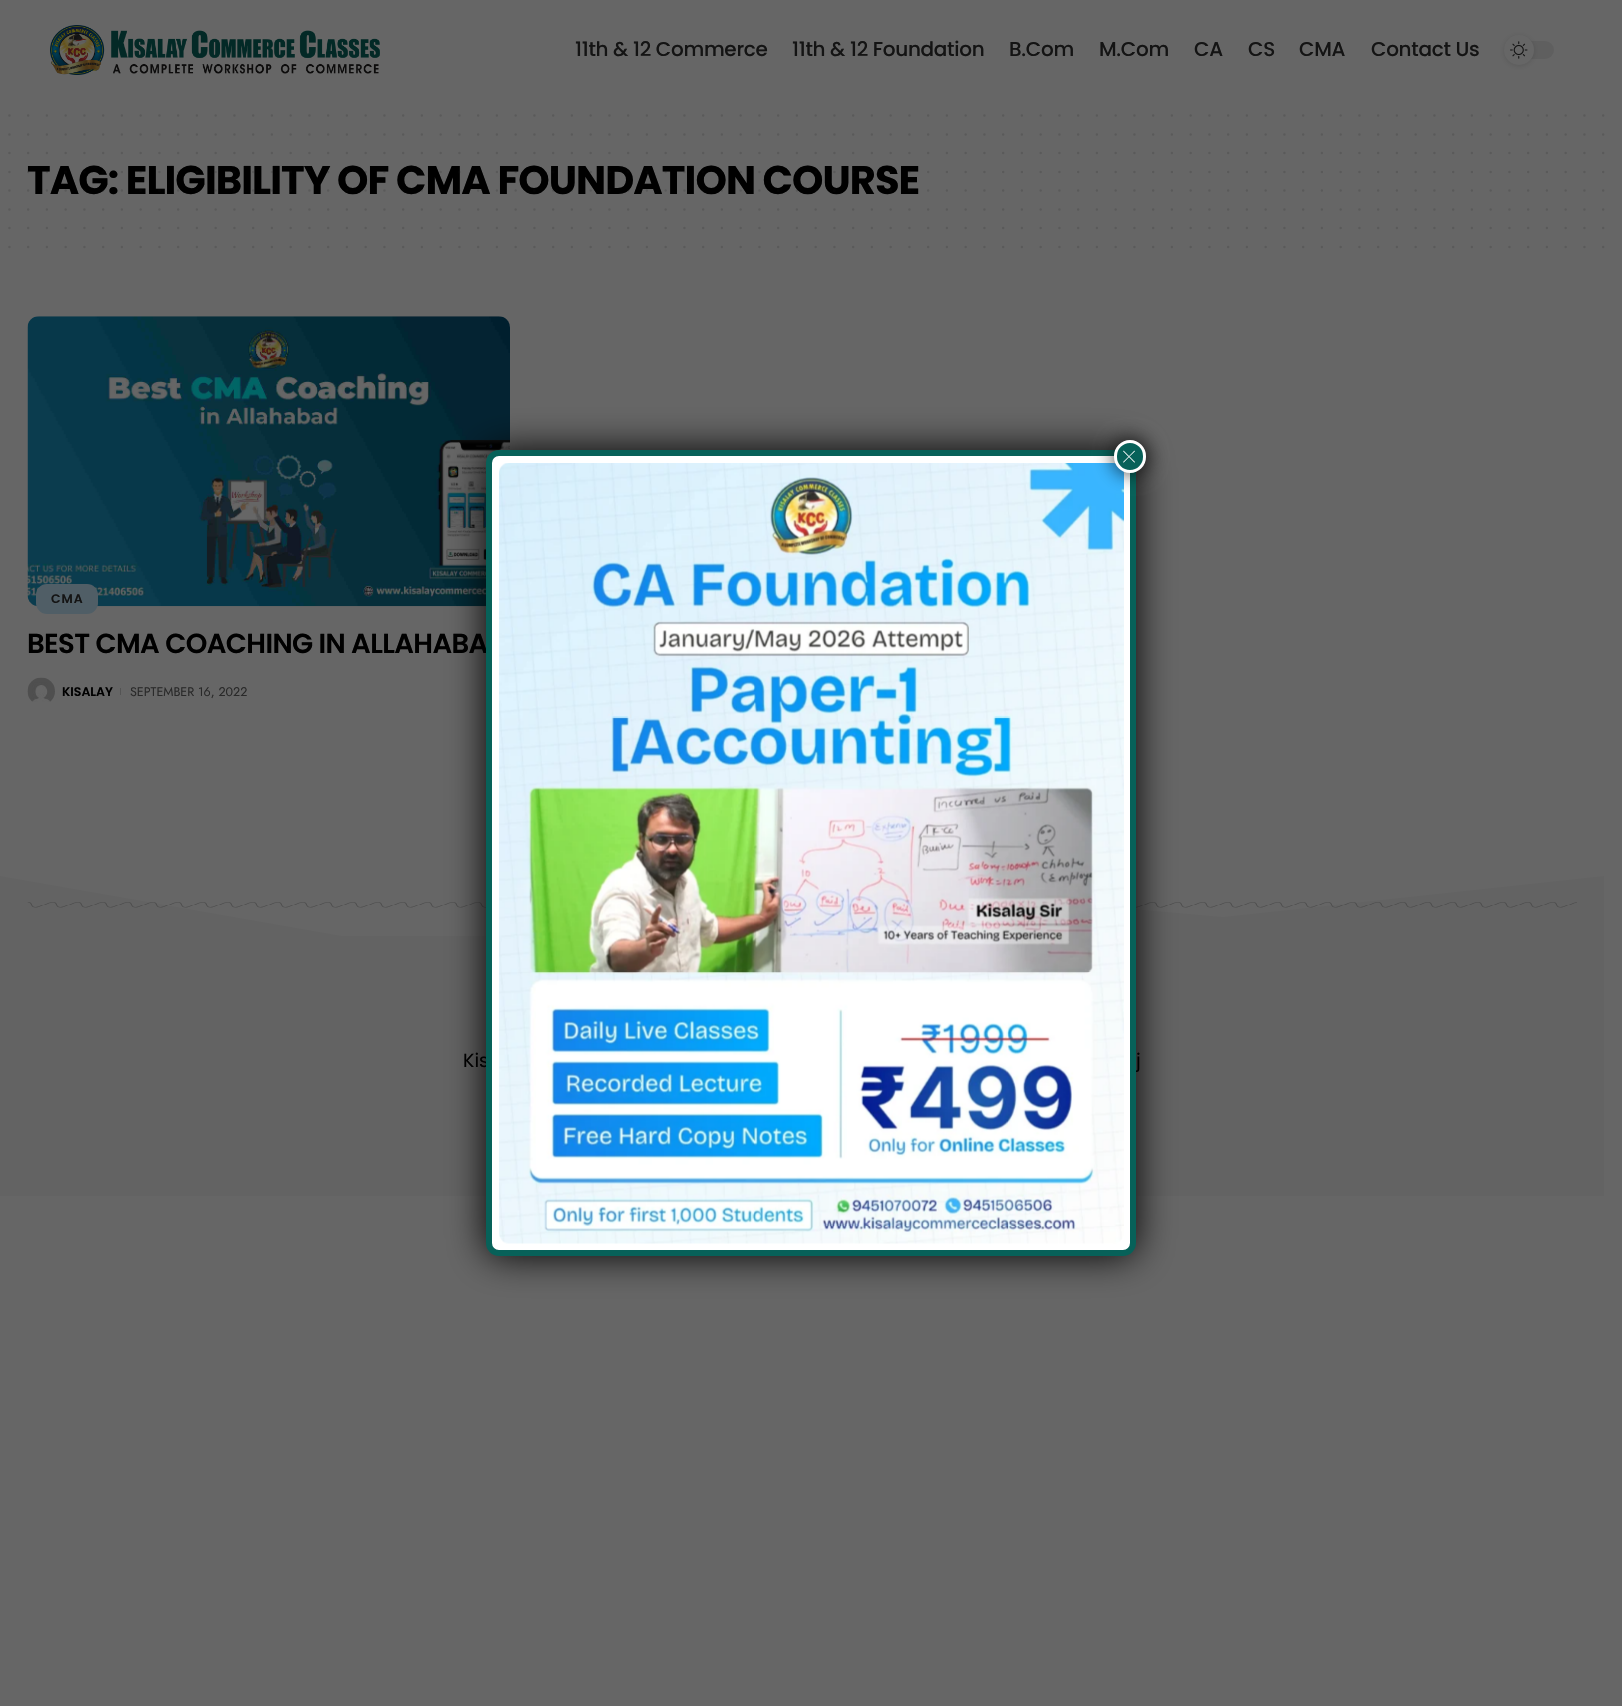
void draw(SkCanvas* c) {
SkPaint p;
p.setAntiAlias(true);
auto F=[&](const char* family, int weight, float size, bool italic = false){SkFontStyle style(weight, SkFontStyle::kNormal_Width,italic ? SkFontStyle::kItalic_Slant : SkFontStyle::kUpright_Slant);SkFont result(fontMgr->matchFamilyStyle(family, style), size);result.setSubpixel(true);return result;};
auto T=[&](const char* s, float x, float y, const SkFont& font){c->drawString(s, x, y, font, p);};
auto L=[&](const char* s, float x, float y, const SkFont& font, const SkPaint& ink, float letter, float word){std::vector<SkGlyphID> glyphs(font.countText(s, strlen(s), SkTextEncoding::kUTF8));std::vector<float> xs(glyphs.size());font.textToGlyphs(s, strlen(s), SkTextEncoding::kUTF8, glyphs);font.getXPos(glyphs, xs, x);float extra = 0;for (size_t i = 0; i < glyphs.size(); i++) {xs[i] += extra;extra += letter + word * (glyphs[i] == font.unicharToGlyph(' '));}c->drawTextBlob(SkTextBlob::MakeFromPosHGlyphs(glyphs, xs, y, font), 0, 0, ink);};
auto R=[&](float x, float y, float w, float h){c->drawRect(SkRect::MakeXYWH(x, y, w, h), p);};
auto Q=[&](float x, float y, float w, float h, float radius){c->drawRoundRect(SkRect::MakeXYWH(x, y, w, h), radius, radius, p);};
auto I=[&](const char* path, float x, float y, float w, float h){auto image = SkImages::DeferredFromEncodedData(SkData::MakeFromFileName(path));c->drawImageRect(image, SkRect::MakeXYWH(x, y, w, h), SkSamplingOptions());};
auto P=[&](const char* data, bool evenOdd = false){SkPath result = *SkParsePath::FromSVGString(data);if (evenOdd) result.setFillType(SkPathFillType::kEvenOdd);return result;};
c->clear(0xff666666);
I("1.png",50,25,330,50);
auto f1 = F("Poppins",500,20);
p.setColor(0xff141414);
L("11th & 12 Commerce",575,56,f1,p,-.3,0);
L("11th & 12 Foundation",792,56,f1,p,-.3,0);
L("B.Com",1009,56,f1,p,-.3,0);
L("M.Com",1099,56,f1,p,-.3,0);
L("CA",1194,56,f1,p,-.3,0);
L("CS",1248,56,f1,p,-.3,0);
L("CMA",1299,56,f1,p,-.3,0);
L("Contact Us",1371,56,f1,p,-.3,0);
p.setColor(0xff5f5f5f);
Q(1504,41,50,18,9);
p.setColor(0x1f000000);
p.setMaskFilter(SkMaskFilter::MakeBlur(kNormal_SkBlurStyle, 2.5));
c->drawRoundRect(SkRect::MakeXYWH(1504,36,30,30),15,15,p);
p.setMaskFilter(nullptr);
p.setColor(0xff666666);
c->drawCircle(1519,50,15,p);
I("2.png",1510,41,18,18);
p.setStroke(true);
p.setStrokeWidth(2.5);
p.setStrokeCap(SkPaint::kRound_Cap);
p.setColor(0xff5a5a5a);
p.setPathEffect(SkDashPathEffect::Make({{0,18.75f}}, 0));
c->drawPath(P("M9.4 115.6h1594"),p);
p.setPathEffect(nullptr);
p.setPathEffect(SkDashPathEffect::Make({{0,18.75f}}, 0));
c->drawPath(P("M9.4 134.4h1594"),p);
p.setPathEffect(nullptr);
p.setPathEffect(SkDashPathEffect::Make({{0,18.75f}}, 0));
c->drawPath(P("M9.4 153.1h1594"),p);
p.setPathEffect(nullptr);
auto f2 = F("Poppins",700,40);
p.setStroke(false);
p.setColor(0xff000000);
L("TAG: ELIGIBILITY OF CMA FOUNDATION COURSE",27,194,f2,p,-.95,0);
p.setStroke(true);
p.setColor(0x26141414);
p.setPathEffect(SkDashPathEffect::Make({{0,18.75f}}, 0));
c->drawPath(P("M9.4 171.9h1594"),p);
p.setPathEffect(nullptr);
p.setPathEffect(SkDashPathEffect::Make({{0,18.75f}}, 0));
c->drawPath(P("M9.4 190.6h1594"),p);
p.setPathEffect(nullptr);
p.setColor(0xff5a5a5a);
p.setPathEffect(SkDashPathEffect::Make({{0,18.75f}}, 0));
c->drawPath(P("M9.4 209.4h1594"),p);
p.setPathEffect(nullptr);
p.setPathEffect(SkDashPathEffect::Make({{0,18.75f}}, 0));
c->drawPath(P("M9.4 228.1h1594"),p);
p.setPathEffect(nullptr);
p.setPathEffect(SkDashPathEffect::Make({{0,18.75f}}, 0));
c->drawPath(P("M9.4 246.9h1594"),p);
p.setPathEffect(nullptr);
I("3.png",27,316,483,291);
p.setStroke(false);
p.setColor(0xff505e66);
Q(36,584,62,30,11);
auto f3 = F("Poppins",600,12.5);
p.setColor(0xff141414);
L("CMA",51,603,f3,p,1,0);
auto f4 = F("Poppins",600,27.5);
p.setColor(0xff000000);
L("BEST CMA COACHING IN ALLAHABA",27,653,f4,p,-.6,0);
I("4.png",27,677,28,25);
T("KISALAY",62,696,f3);
p.setColor(0xff545454);
R(120,688,1,7);
auto f5 = F("Jost",400,12.5);
p.setColor(0xff292929);
T("SEPTEMBER 16, 2022",130,696,f5);
p.setColor(0xff636363);
R(0,876,1604,60);
c->save();
c->clipRect(SkRect::MakeXYWH(0,873,1604,100));
p.setColor(0xff666666);
c->drawPath(P("M1223 917l-191-17l-496 70l-536-94v-4h1605v4"),p);
c->restore();
I("5.png",27,902,1550,6);
p.setColor(0xff636363);
R(0,936,1604,260);
auto f6 = F("Poppins",400,19);
p.setColor(0xff000000);
T("Kis",463,1067,f6);
T("j",1136,1067,f6);
p.setColor(0xff020202);
p.setMaskFilter(SkMaskFilter::MakeBlur(kNormal_SkBlurStyle, 19));
c->drawRoundRect(SkRect::MakeXYWH(486,450,650,806),13,13,p);
p.setMaskFilter(nullptr);
p.setColor(0xffffffff);
c->drawRoundRect(SkRect::MakeXYWH(489,453,644,800),10,10,p);
p.setStroke(true);
p.setStrokeWidth(6);
p.setStrokeCap(SkPaint::kButt_Cap);
p.setColor(0xff076159);
c->drawRoundRect(SkRect::MakeXYWH(489,453,644,800),10,10,p);
I("6.png",499,463,625,781);
p.setStroke(false);
p.setColor(0xbf020202);
p.setMaskFilter(SkMaskFilter::MakeBlur(kNormal_SkBlurStyle, 9.5));
c->drawRoundRect(SkRect::MakeXYWH(1113,439,35,35),17.5,17.5,p);
p.setMaskFilter(nullptr);
p.setColor(0xff076159);
c->drawRoundRect(SkRect::MakeXYWH(1115.5,441.5,29,30),14.5,14.5,p);
p.setStroke(true);
p.setStrokeWidth(3);
p.setColor(0xffffffff);
c->drawRoundRect(SkRect::MakeXYWH(1115.5,441.5,29,30),14.5,14.5,p);
auto f7 = F("Poppins",100,30);
p.setStroke(false);
T("×",1122,468,f7);
}
